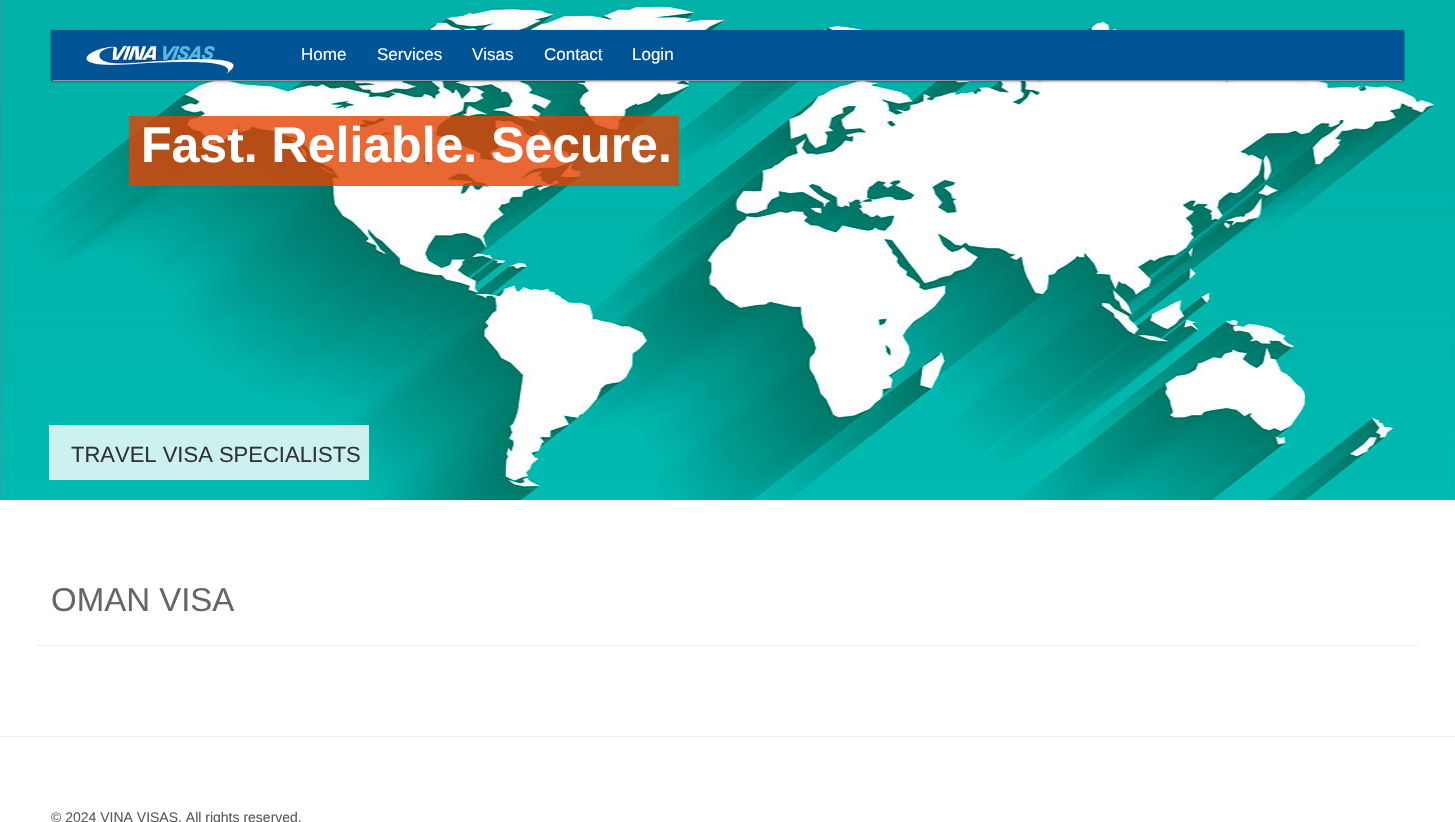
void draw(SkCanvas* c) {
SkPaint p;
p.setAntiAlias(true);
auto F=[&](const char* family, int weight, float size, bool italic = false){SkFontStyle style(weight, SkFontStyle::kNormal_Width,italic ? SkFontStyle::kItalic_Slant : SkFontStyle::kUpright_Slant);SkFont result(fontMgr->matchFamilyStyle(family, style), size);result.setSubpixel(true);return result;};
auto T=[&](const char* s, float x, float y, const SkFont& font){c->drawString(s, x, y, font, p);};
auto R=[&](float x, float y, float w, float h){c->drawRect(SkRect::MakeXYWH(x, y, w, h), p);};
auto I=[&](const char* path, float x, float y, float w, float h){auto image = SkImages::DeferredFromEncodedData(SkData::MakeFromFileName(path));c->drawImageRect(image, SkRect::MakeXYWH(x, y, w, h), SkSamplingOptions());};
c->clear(0xffffffff);
p.setColor(0xff777777);
R(0,0,1,500);
I("2.png",0,0,1455,500);
p.setColor(0x12000000);
p.setMaskFilter(SkMaskFilter::MakeBlur(kNormal_SkBlurStyle, 2.5));
c->drawRoundRect(SkRect::MakeXYWH(51,31,1353,51),4,4,p);
p.setMaskFilter(nullptr);
p.setColor(0xffe7e7e7);
R(53,80,1349,1);
p.setColor(0x80000000);
p.setMaskFilter(SkMaskFilter::MakeBlur(kNormal_SkBlurStyle, 1));
c->drawRect(SkRect::MakeXYWH(51,31,1353,50),p);
p.setMaskFilter(nullptr);
p.setColor(0xff015496);
R(51,30,1353,50);
I("1.png",85,30,150,46);
auto f1 = F("Liberation Sans",400,17);
p.setColor(0xffffffff);
T("Home",301,60,f1);
T("Services",377,60,f1);
T("Visas",472,60,f1);
T("Contact",544,60,f1);
T("Login",632,60,f1);
p.setColor(0xcce44100);
R(129,116,550,70);
auto f2 = F("Liberation Sans",700,50);
p.setColor(0xffffffff);
T("Fast. Reliable. Secure.",141,162,f2);
p.setColor(0xccffffff);
R(49,425,320,55);
auto f3 = F("Liberation Sans",400,22);
p.setColor(0xff333333);
T("TRAVEL VISA SPECIALISTS",71,462,f3);
auto f4 = F("Liberation Sans",400,33);
p.setColor(0xff666666);
T("OMAN VISA",51,611,f4);
p.setColor(0xffeeeeee);
R(36,645,1383,1);
R(0,736,1455,1);
auto f5 = F("Liberation Sans",400,14);
p.setColor(0xff5a5a5a);
T("© 2024 VINA VISAS. All rights reserved.",51,822,f5);
}
